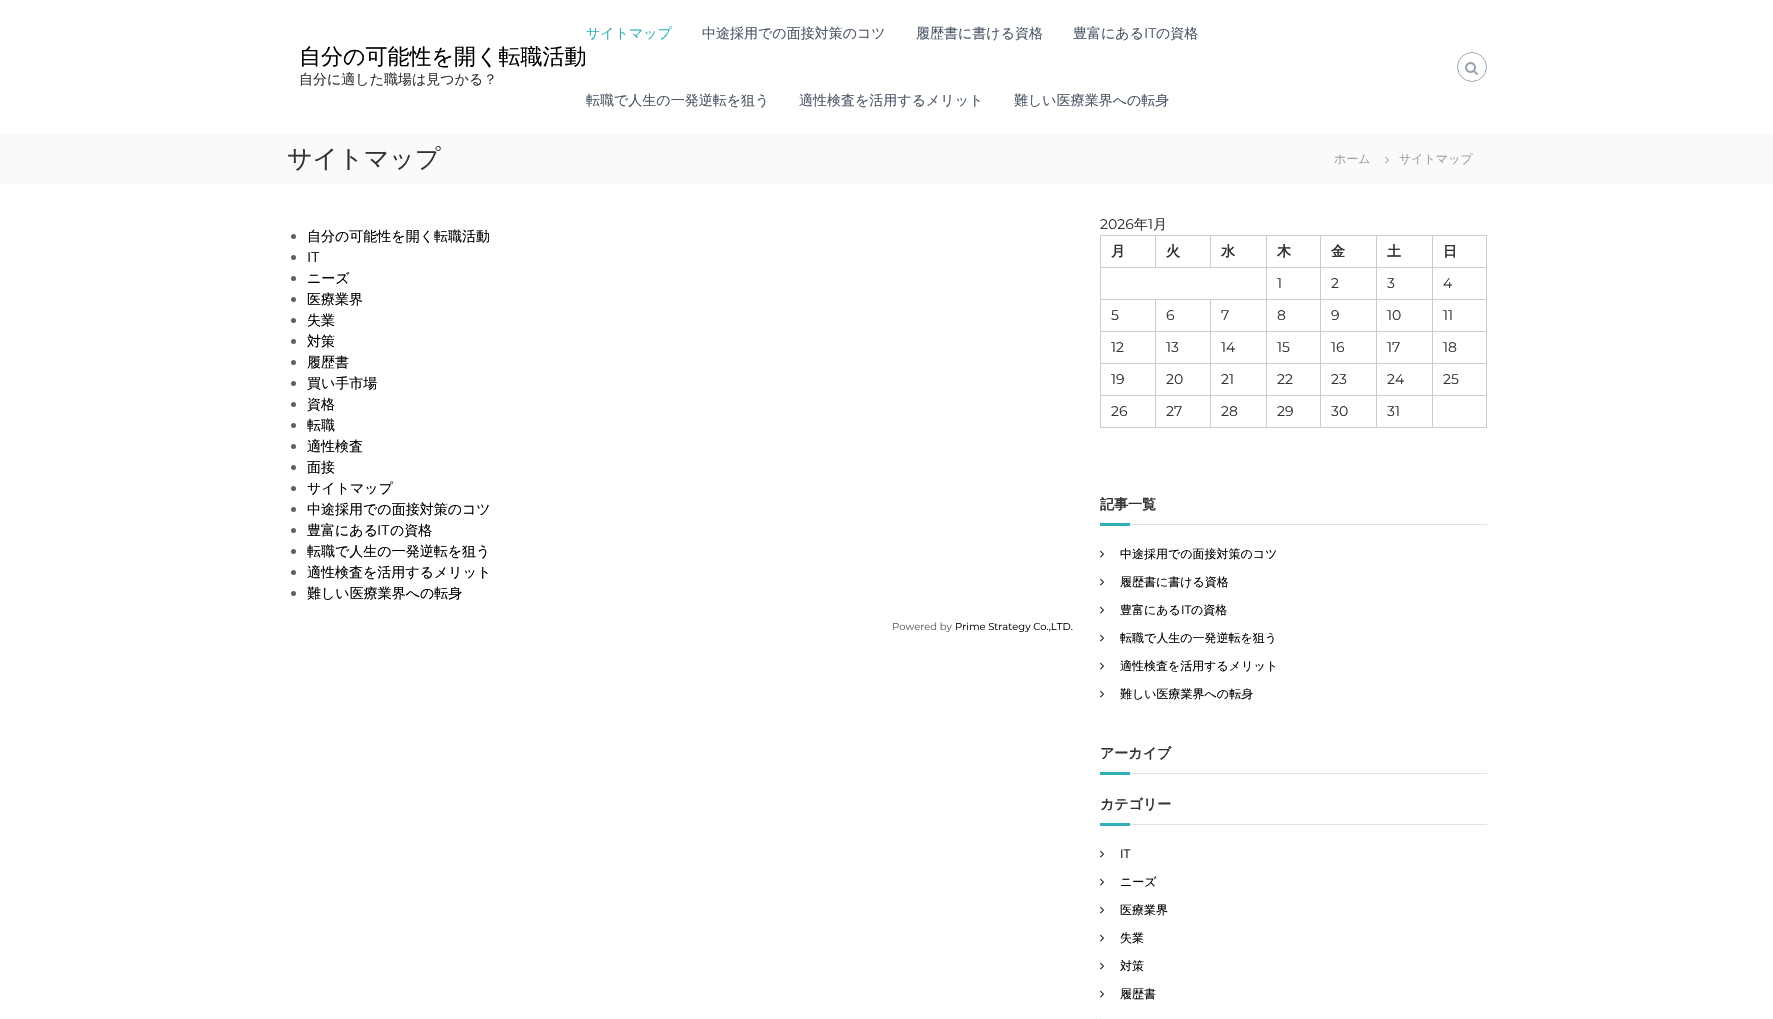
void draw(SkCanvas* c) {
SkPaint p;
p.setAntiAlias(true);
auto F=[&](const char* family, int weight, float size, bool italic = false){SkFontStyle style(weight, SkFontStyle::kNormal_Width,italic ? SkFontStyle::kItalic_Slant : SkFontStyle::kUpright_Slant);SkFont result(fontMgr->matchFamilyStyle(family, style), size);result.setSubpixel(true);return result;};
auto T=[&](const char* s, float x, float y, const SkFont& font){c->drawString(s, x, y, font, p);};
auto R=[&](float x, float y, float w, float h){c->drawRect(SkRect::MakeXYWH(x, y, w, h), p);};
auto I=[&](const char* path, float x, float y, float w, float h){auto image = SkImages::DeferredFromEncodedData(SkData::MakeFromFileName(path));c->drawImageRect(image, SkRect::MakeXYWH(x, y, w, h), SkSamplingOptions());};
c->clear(0xffffffff);
auto f1 = F("WenQuanYi Zen Hei",500,22);
p.setColor(0xff000000);
T("自分の可能性を開く転職活動",299,64,f1);
auto f2 = F("WenQuanYi Zen Hei",500,14);
p.setColor(0xff333333);
T("自分に適した職場は見つかる？",299,84,f2);
p.setColor(0xff30afb8);
T("サイトマップ",586,38,f2);
p.setColor(0xff4c5867);
T("中途採用での面接対策のコツ",702,38,f2);
T("履歴書に書ける資格",916,38,f2);
T("豊富にある",1073,38,f2);
auto f3 = F("Montserrat",400,14);
T("IT",1144,38,f3);
T("の資格",1156,38,f2);
T("転職で人生の一発逆転を狙う",586,105,f2);
T("適性検査を活用するメリット",799,105,f2);
T("難しい医療業界への転身",1014,105,f2);
p.setStroke(true);
p.setStrokeWidth(1);
p.setColor(0xff9ca6b2);
c->drawCircle(1472,67,14.5,p);
I("1.png",1465,62,13,13);
p.setStroke(false);
p.setColor(0xfffafafa);
R(0,134,1773,50);
auto f4 = F("WenQuanYi Zen Hei",500,25);
p.setColor(0xff333333);
T("サイトマップ",287,167,f4);
auto f5 = F("WenQuanYi Zen Hei",500,12);
p.setColor(0xffa1a1a1);
T("ホーム",1334,163,f5);
I("2.png",1385,156,4,8);
T("サイトマップ",1399,163,f5);
p.setColor(0xff606060);
c->drawCircle(293.5,236.5,2.5,p);
p.setColor(0xff000000);
T("自分の可能性を開く転職活動",307,241,f2);
p.setColor(0xff606060);
c->drawCircle(293.5,257.5,2.5,p);
p.setColor(0xff000000);
T("IT",307,262,f3);
p.setColor(0xff606060);
c->drawCircle(293.5,278.5,2.5,p);
p.setColor(0xff000000);
T("ニーズ",307,283,f2);
p.setColor(0xff606060);
c->drawCircle(293.5,299.5,2.5,p);
p.setColor(0xff000000);
T("医療業界",307,304,f2);
p.setColor(0xff606060);
c->drawCircle(293.5,320.5,2.5,p);
p.setColor(0xff000000);
T("失業",307,325,f2);
p.setColor(0xff606060);
c->drawCircle(293.5,341.5,2.5,p);
p.setColor(0xff000000);
T("対策",307,346,f2);
p.setColor(0xff606060);
c->drawCircle(293.5,362.5,2.5,p);
p.setColor(0xff000000);
T("履歴書",307,367,f2);
p.setColor(0xff606060);
c->drawCircle(293.5,383.5,2.5,p);
p.setColor(0xff000000);
T("買い手市場",307,388,f2);
p.setColor(0xff606060);
c->drawCircle(293.5,404.5,2.5,p);
p.setColor(0xff000000);
T("資格",307,409,f2);
p.setColor(0xff606060);
c->drawCircle(293.5,425.5,2.5,p);
p.setColor(0xff000000);
T("転職",307,430,f2);
p.setColor(0xff606060);
c->drawCircle(293.5,446.5,2.5,p);
p.setColor(0xff000000);
T("適性検査",307,451,f2);
p.setColor(0xff606060);
c->drawCircle(293.5,467.5,2.5,p);
p.setColor(0xff000000);
T("面接",307,472,f2);
p.setColor(0xff606060);
c->drawCircle(293.5,488.5,2.5,p);
p.setColor(0xff000000);
T("サイトマップ",307,493,f2);
p.setColor(0xff606060);
c->drawCircle(293.5,509.5,2.5,p);
p.setColor(0xff000000);
T("中途採用での面接対策のコツ",307,514,f2);
p.setColor(0xff606060);
c->drawCircle(293.5,530.5,2.5,p);
p.setColor(0xff000000);
T("豊富にある",307,535,f2);
T("IT",377,535,f3);
T("の資格",390,535,f2);
p.setColor(0xff606060);
c->drawCircle(293.5,551.5,2.5,p);
p.setColor(0xff000000);
T("転職で人生の一発逆転を狙う",307,556,f2);
p.setColor(0xff606060);
c->drawCircle(293.5,572.5,2.5,p);
p.setColor(0xff000000);
T("適性検査を活用するメリット",307,577,f2);
p.setColor(0xff606060);
c->drawCircle(293.5,593.5,2.5,p);
p.setColor(0xff000000);
T("難しい医療業界への転身",307,598,f2);
auto f6 = F("Montserrat",400,10);
p.setColor(0xff606060);
T("Powered by",892,630,f6);
p.setColor(0xff000000);
T("Prime Strategy Co.,LTD.",955,630,f6);
p.setColor(0xff333333);
T("2026",1100,229,f3);
T("年",1134,229,f2);
T("1",1148,229,f3);
T("月",1153,229,f2);
p.setColor(0xffcccccc);
R(1432,235,55,1);
R(1432,267,55,1);
R(1432,299,55,1);
R(1432,331,55,1);
R(1432,363,55,1);
R(1432,395,55,1);
R(1486,395,1,33);
R(1432,427,55,1);
R(1432,395,1,33);
R(1376,395,57,1);
R(1432,363,1,33);
R(1376,363,57,1);
R(1432,331,1,33);
R(1376,331,57,1);
R(1432,299,1,33);
R(1376,299,57,1);
R(1432,267,1,33);
R(1376,267,57,1);
R(1432,235,1,33);
R(1376,235,57,1);
R(1376,427,57,1);
R(1376,395,1,33);
R(1320,395,57,1);
R(1376,363,1,33);
R(1320,363,57,1);
R(1376,331,1,33);
R(1320,331,57,1);
R(1376,299,1,33);
R(1320,299,57,1);
R(1376,267,1,33);
R(1320,267,57,1);
R(1376,235,1,33);
R(1320,235,57,1);
R(1320,427,57,1);
R(1320,395,1,33);
R(1266,395,55,1);
R(1320,363,1,33);
R(1266,363,55,1);
R(1320,331,1,33);
R(1266,331,55,1);
R(1320,299,1,33);
R(1266,299,55,1);
R(1320,267,1,33);
R(1266,267,55,1);
R(1320,235,1,33);
R(1266,235,55,1);
R(1266,427,55,1);
R(1266,395,1,33);
R(1210,395,57,1);
R(1266,363,1,33);
R(1210,363,57,1);
R(1266,331,1,33);
R(1210,331,57,1);
R(1266,299,1,33);
R(1210,299,57,1);
R(1266,267,1,33);
R(1100,267,167,1);
R(1266,235,1,33);
R(1210,235,57,1);
R(1210,235,1,33);
R(1155,235,56,1);
R(1155,235,1,33);
R(1100,235,56,1);
R(1210,427,57,1);
R(1210,395,1,33);
R(1155,395,56,1);
R(1210,363,1,33);
R(1155,363,56,1);
R(1210,331,1,33);
R(1155,331,56,1);
R(1210,299,1,33);
R(1155,299,56,1);
R(1155,427,56,1);
R(1155,395,1,33);
R(1100,395,56,1);
R(1155,363,1,33);
R(1100,363,56,1);
R(1155,331,1,33);
R(1100,331,56,1);
R(1155,299,1,33);
R(1100,299,56,1);
R(1100,427,56,1);
R(1100,395,1,33);
R(1100,363,1,33);
R(1100,331,1,33);
R(1100,299,1,33);
R(1100,267,1,33);
R(1100,235,1,33);
auto f7 = F("WenQuanYi Zen Hei",700,14);
p.setColor(0xff333333);
T("月",1111,256,f7);
T("火",1166,256,f7);
T("水",1221,256,f7);
T("木",1277,256,f7);
T("金",1331,256,f7);
T("土",1387,256,f7);
p.setColor(0xffcccccc);
R(1486,363,1,33);
R(1486,331,1,33);
R(1486,299,1,33);
R(1486,267,1,33);
R(1486,235,1,33);
p.setColor(0xff333333);
T("日",1443,256,f7);
T("1",1277,288,f3);
T("2",1331,288,f3);
T("3",1387,288,f3);
T("4",1443,288,f3);
T("5",1111,320,f3);
T("6",1166,320,f3);
T("7",1221,320,f3);
T("8",1277,320,f3);
T("9",1331,320,f3);
T("10",1387,320,f3);
T("11",1443,320,f3);
T("12",1111,352,f3);
T("13",1166,352,f3);
T("14",1221,352,f3);
T("15",1277,352,f3);
T("16",1331,352,f3);
T("17",1387,352,f3);
T("18",1443,352,f3);
T("19",1111,384,f3);
T("20",1166,384,f3);
T("21",1221,384,f3);
T("22",1277,384,f3);
T("23",1331,384,f3);
T("24",1387,384,f3);
T("25",1443,384,f3);
T("26",1111,416,f3);
T("27",1166,416,f3);
T("28",1221,416,f3);
T("29",1277,416,f3);
T("30",1331,416,f3);
T("31",1387,416,f3);
T("記事一覧",1100,509,f7);
p.setColor(0xff30afb8);
R(1100,523,30,3);
p.setColor(0xffe1e1e1);
R(1130,524,357,1);
I("3.png",1100,550,4,8);
p.setColor(0xff000000);
T("中途採用での面接対策のコツ",1120,558,f5);
I("3.png",1100,578,4,8);
T("履歴書に書ける資格",1120,586,f5);
I("3.png",1100,606,4,8);
T("豊富にある",1120,614,f5);
auto f8 = F("Montserrat",400,12);
T("IT",1181,614,f8);
T("の資格",1191,614,f5);
I("3.png",1100,634,4,8);
T("転職で人生の一発逆転を狙う",1120,642,f5);
I("3.png",1100,662,4,8);
T("適性検査を活用するメリット",1120,670,f5);
I("3.png",1100,690,4,8);
T("難しい医療業界への転身",1120,698,f5);
p.setColor(0xff333333);
T("アーカイブ",1100,758,f7);
p.setColor(0xff30afb8);
R(1100,772,30,3);
p.setColor(0xffe1e1e1);
R(1130,773,357,1);
p.setColor(0xff333333);
T("カテゴリー",1100,809,f7);
p.setColor(0xff30afb8);
R(1100,823,30,3);
p.setColor(0xffe1e1e1);
R(1130,824,357,1);
I("3.png",1100,850,4,8);
p.setColor(0xff000000);
T("IT",1120,858,f8);
I("3.png",1100,878,4,8);
T("ニーズ",1120,886,f5);
I("3.png",1100,906,4,8);
T("医療業界",1120,914,f5);
I("3.png",1100,934,4,8);
T("失業",1120,942,f5);
I("3.png",1100,962,4,8);
T("対策",1120,970,f5);
I("3.png",1100,990,4,8);
T("履歴書",1120,998,f5);
p.setColor(0xffededed);
R(1100,1018,1,1);
}
